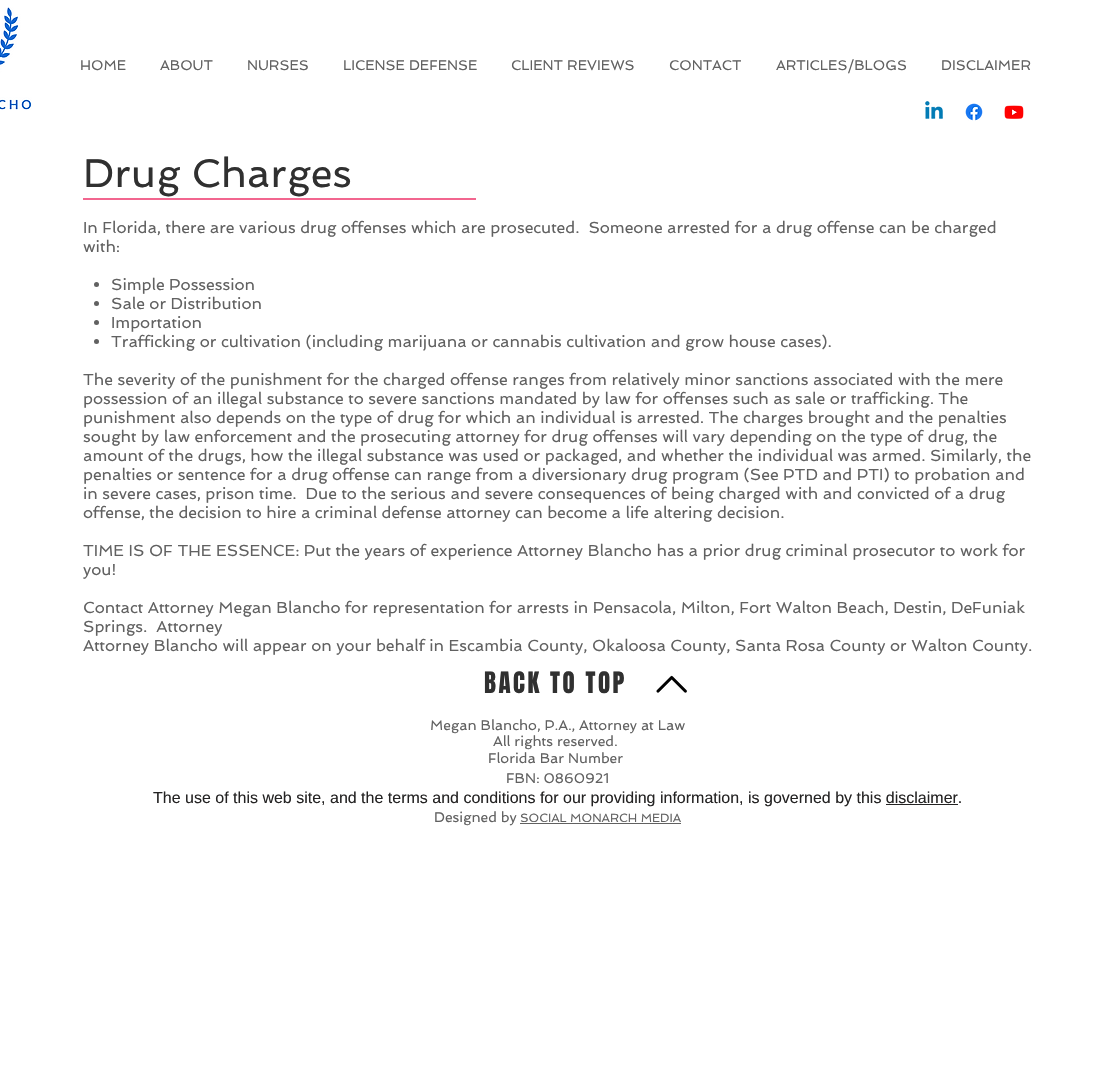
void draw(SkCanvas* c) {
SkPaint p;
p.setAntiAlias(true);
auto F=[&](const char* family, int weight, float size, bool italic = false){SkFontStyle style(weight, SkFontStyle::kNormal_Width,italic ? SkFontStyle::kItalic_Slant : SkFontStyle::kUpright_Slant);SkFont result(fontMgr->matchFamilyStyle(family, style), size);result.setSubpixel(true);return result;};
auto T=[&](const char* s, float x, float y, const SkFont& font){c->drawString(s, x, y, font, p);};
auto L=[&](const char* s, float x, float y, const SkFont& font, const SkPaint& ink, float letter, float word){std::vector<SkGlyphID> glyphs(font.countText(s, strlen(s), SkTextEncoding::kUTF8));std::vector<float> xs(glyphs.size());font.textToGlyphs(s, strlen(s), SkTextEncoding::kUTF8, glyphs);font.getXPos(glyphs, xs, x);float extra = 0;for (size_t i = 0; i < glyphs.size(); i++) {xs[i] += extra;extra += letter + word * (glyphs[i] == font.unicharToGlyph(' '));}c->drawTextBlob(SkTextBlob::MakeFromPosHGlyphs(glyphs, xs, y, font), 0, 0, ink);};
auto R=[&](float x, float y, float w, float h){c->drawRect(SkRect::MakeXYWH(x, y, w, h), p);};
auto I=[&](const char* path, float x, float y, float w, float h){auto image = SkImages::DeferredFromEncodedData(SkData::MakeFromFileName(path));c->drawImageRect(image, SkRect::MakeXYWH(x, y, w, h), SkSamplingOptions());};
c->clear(0xffffffff);
I("1.png",0,7,32,103);
auto f1 = F("Spinnaker",400,14);
p.setColor(0xff616161);
T("HOME",80,70,f1);
T("ABOUT",160,70,f1);
T("NURSES",247,70,f1);
T("LICENSE DEFENSE",343,70,f1);
T("CLIENT REVIEWS",511,70,f1);
T("CONTACT",669,70,f1);
T("ARTICLES/BLOGS",776,70,f1);
T("DISCLAIMER",941,70,f1);
I("2.png",925,101,18,18);
I("3.png",965,103,18,18);
I("4.png",1004,105,20,14);
auto f2 = F("Spinnaker",400,40);
p.setColor(0xff303030);
T("Drug Charges",83,187,f2);
auto f3 = F("Spinnaker",400,16);
p.setColor(0xff616161);
T("In Florida, there are various drug offenses which are prosecuted.  Someone arrested for a drug offense can be charged",83,233,f3);
T("with:",83,252,f3);
c->drawCircle(96.5,284.5,2.5,p);
T("Simple Possession",111,290,f3);
c->drawCircle(96.5,303.5,2.5,p);
T("Sale or Distribution",111,309,f3);
c->drawCircle(96.5,322.5,2.5,p);
T("Importation",111,328,f3);
c->drawCircle(96.5,341.5,2.5,p);
T("Trafficking or cultivation (including marijuana or cannabis cultivation and grow house cases).",111,347,f3);
T("The severity of the punishment for the charged offense ranges from relatively minor sanctions associated with the mere",83,385,f3);
T("possession of an illegal substance to severe sanctions mandated by law for offenses such as sale or trafficking. The",83,404,f3);
T("punishment also depends on the type of drug for which an individual is arrested. The charges brought and the penalties",83,423,f3);
T("sought by law enforcement and the prosecuting attorney for drug offenses will vary depending on the type of drug, the",83,442,f3);
T("amount of the drugs, how the illegal substance was used or packaged, and whether the individual was armed. Similarly, the",83,461,f3);
T("penalties or sentence for a drug offense can range from a diversionary drug program (See PTD and PTI) to probation and",83,480,f3);
T("in severe cases, prison time.  Due to the serious and severe consequences of being charged with and convicted of a drug",83,499,f3);
T("offense, the decision to hire a criminal defense attorney can become a life altering decision.",83,518,f3);
T("TIME IS OF THE ESSENCE: Put the years of experience Attorney Blancho has a prior drug criminal prosecutor to work for",83,556,f3);
T("you!",83,575,f3);
T("Contact Attorney Megan Blancho for representation for arrests in Pensacola, Milton, Fort Walton Beach, Destin, DeFuniak",83,613,f3);
T("Springs.  Attorney",83,632,f3);
T("Attorney Blancho will appear on your behalf in Escambia County, Okaloosa County, Santa Rosa County or Walton County.",83,651,f3);
p.setColor(0xfff2668f);
R(83,198,393,2);
auto f4 = F("Anton",400,25);
p.setColor(0xff303030);
L("BACK TO TOP",484,693,f4,p,2.5,0);
I("5.png",656,675,31,18);
p.setColor(0xff616161);
T("Megan Blancho, P.A., Attorney at Law",430,730,f1);
T("All rights reserved.",493,746,f1);
T("Florida Bar Number",488,763,f1);
T("FBN: 0860921",506,783,f1);
auto f5 = F("Liberation Sans",400,16);
p.setColor(0xff242323);
T("The use of this web site, and the terms and conditions for our providing information, is governed by this disclaimer.",153,803,f5);
R(886,804,72,1);
p.setColor(0xff616161);
T("Designed by",434,822,f1);
auto f6 = F("Spinnaker",400,12);
T("SOCIAL MONARCH MEDIA",520,822,f6);
R(520,823,161,1);
}
